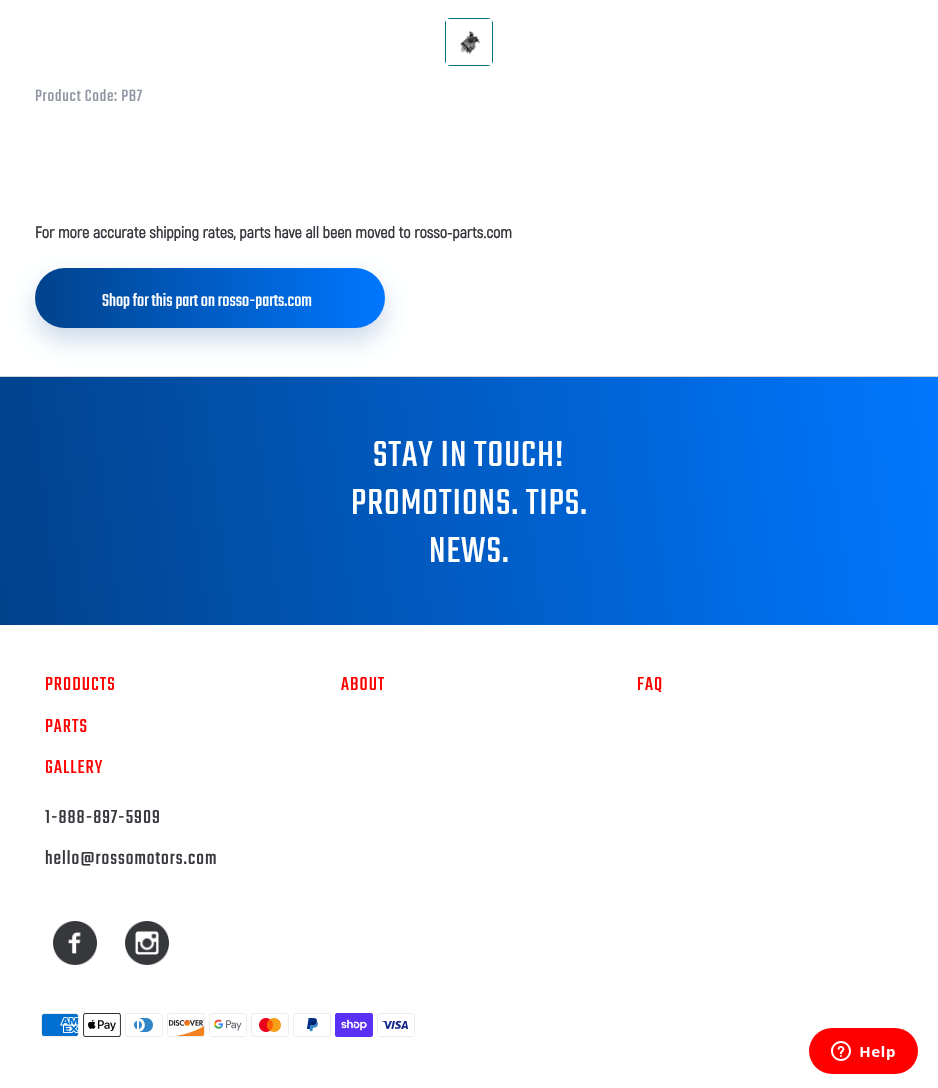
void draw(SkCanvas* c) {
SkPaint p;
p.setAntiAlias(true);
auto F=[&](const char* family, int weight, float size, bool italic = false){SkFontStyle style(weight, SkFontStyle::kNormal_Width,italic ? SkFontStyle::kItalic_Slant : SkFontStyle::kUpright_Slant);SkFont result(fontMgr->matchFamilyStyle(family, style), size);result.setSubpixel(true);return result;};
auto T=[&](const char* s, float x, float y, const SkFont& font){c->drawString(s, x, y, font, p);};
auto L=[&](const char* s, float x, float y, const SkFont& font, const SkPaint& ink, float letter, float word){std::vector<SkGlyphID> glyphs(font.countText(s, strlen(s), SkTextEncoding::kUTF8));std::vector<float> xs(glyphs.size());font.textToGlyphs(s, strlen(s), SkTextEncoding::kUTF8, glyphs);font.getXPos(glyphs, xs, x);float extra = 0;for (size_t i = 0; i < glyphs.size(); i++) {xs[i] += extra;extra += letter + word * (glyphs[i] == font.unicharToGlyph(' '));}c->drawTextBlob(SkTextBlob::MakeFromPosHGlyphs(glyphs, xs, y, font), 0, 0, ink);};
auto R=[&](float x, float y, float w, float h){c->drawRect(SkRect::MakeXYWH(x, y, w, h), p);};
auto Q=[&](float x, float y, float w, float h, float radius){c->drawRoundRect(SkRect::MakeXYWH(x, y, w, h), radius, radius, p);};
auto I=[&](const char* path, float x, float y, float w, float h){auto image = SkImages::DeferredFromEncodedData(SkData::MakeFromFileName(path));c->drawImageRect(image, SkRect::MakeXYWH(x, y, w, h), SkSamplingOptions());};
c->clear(0xffffffff);
p.setStroke(true);
p.setStrokeWidth(1);
p.setColor(0xff007185);
c->drawRoundRect(SkRect::MakeXYWH(445.5,18.5,47,47),4.5,4.5,p);
I("1.png",446,19,46,46);
auto f1 = F("Teko",400,18);
p.setStroke(false);
p.setColor(0xff9096a3);
L("Product Code: PB7",35,101,f1,p,.75,0);
auto f2 = F("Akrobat",700,16);
p.setColor(0xff36383d);
T("For more accurate shipping rates, parts have all been moved to rosso-parts.com",35,238,f2);
p.setColor(0xffd3d3d3);
R(0,376,938,1);
p.setColor(0x3301428b);
p.setMaskFilter(SkMaskFilter::MakeBlur(kNormal_SkBlurStyle, 12));
c->drawRoundRect(SkRect::MakeXYWH(35,280,350,60),30,30,p);
p.setMaskFilter(nullptr);
{
const SkColor colors[] = {0xff01428b,0xff0077ff};
const float stops[] = {0,1};
const SkPoint ends[] = {{35,298}, {385,298}};
p.setShader(SkGradientShader::MakeLinear(ends, colors, stops, 2, SkTileMode::kClamp));
p.setAlpha(255);
}
Q(35,268,350,60,30);
auto f3 = F("Teko",400,19.25);
p.setShader(nullptr);
p.setColor(0xffffffff);
T("Shop for this part on rosso-parts.com",102,306,f3);
{
const SkColor colors[] = {0xff01428b,0xff0077ff};
const float stops[] = {0,1};
const SkPoint ends[] = {{-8,560}, {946,442}};
p.setShader(SkGradientShader::MakeLinear(ends, colors, stops, 2, SkTileMode::kClamp));
p.setAlpha(255);
}
R(0,377,938,248);
auto f4 = F("Teko",400,40);
p.setShader(nullptr);
p.setColor(0xffffffff);
L("STAY IN TOUCH!",373,466,f4,p,1,0);
L("PROMOTIONS. TIPS.",351,514,f4,p,1,0);
L("NEWS.",429,562,f4,p,1,0);
auto f5 = F("Teko",400,20.75);
p.setColor(0xffff0000);
L("PRODUCTS",45,690,f5,p,1,0);
L("PARTS",45,732,f5,p,1,0);
L("GALLERY",45,773,f5,p,1,0);
L("ABOUT",341,690,f5,p,1,0);
L("FAQ",637,690,f5,p,1,0);
p.setColor(0xff36383d);
L("1-888-897-5909",45,823,f5,p,1,0);
L("hello@rossomotors.com",45,864,f5,p,1,0);
I("2.png",53,921,44,44);
I("3.png",125,921,44,44);
I("4.png",41,1013,38,24);
I("5.png",83,1013,38,24);
I("6.png",125,1013,38,24);
I("7.png",167,1013,38,24);
I("8.png",209,1013,38,24);
I("9.png",251,1013,38,24);
I("10.png",293,1013,38,24);
I("11.png",335,1013,38,24);
I("12.png",377,1013,38,24);
I("13.png",809,1028,109,46);
}
